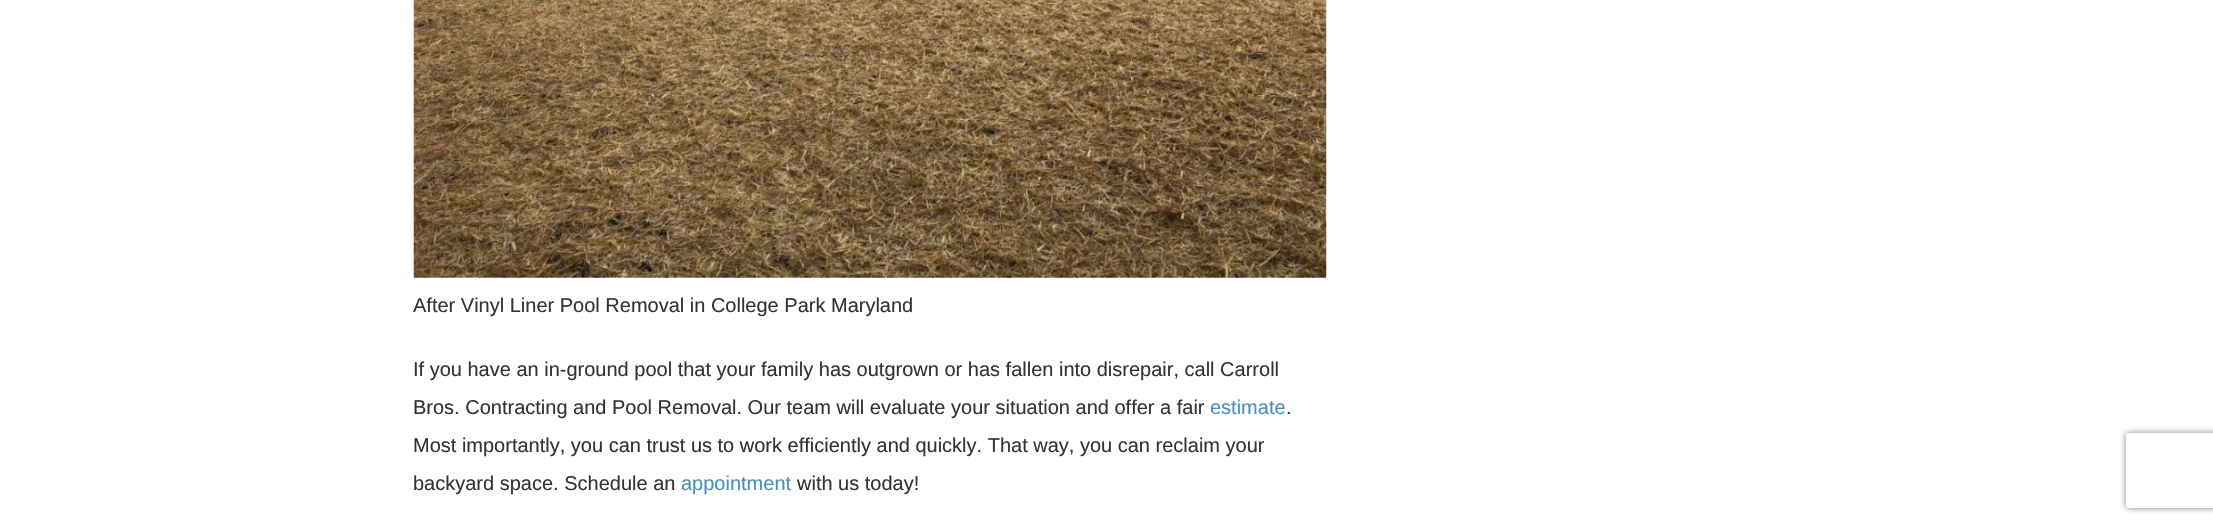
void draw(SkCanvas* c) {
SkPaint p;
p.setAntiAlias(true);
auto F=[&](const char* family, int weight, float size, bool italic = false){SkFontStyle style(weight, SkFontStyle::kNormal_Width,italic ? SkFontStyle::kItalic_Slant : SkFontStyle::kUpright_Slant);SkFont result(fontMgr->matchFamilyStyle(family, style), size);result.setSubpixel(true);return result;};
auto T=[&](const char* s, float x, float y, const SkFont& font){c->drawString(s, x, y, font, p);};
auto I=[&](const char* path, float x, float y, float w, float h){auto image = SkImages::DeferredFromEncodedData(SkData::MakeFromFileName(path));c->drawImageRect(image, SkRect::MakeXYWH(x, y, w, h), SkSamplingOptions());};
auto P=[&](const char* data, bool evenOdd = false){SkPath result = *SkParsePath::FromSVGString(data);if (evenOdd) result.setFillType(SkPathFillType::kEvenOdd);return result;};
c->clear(0xffffffff);
I("1.png",413,0,914,278);
auto f1 = F("Liberation Sans",400,20);
p.setColor(0xff333333);
T("After Vinyl Liner Pool Removal in College Park Maryland",413,312,f1);
T("If you have an in-ground pool that your family has outgrown or has fallen into disrepair, call Carroll",413,376,f1);
T("Bros. Contracting and Pool Removal. Our team will evaluate your situation and offer a fair",413,414,f1);
p.setColor(0xff4892b9);
T("estimate",1210,414,f1);
p.setColor(0xff333333);
T(".",1286,414,f1);
T("Most importantly, you can trust us to work efficiently and quickly. That way, you can reclaim your",413,452,f1);
T("backyard space. Schedule an",413,490,f1);
p.setColor(0xff4892b9);
T("appointment",681,490,f1);
p.setColor(0xff333333);
T("with us today!",797,490,f1);
c->save();
c->clipPath(P("M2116 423h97v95h-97zm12.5 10h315c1.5 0 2.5 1 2.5 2.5v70c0 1.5-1 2.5-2.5 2.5h-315c-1.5 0-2.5-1-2.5-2.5v-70c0-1.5 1-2.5 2.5-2.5z",true),true);
p.setColor(0xff808080);
p.setMaskFilter(SkMaskFilter::MakeBlur(kNormal_SkBlurStyle, 3));
c->drawRoundRect(SkRect::MakeXYWH(2126,433,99,75),2.5,2.5,p);
p.setMaskFilter(nullptr);
c->restore();
}
